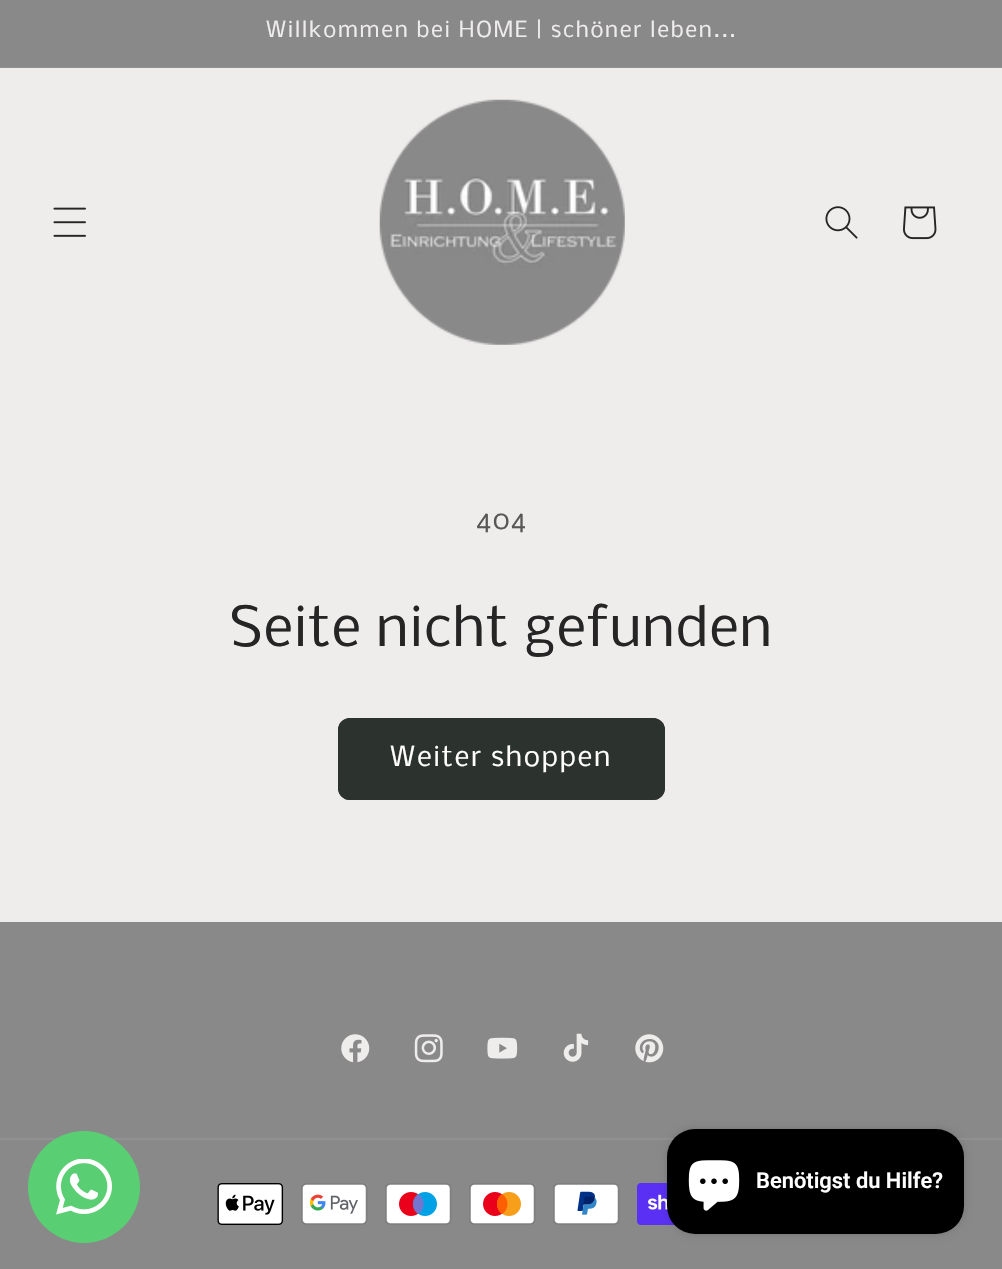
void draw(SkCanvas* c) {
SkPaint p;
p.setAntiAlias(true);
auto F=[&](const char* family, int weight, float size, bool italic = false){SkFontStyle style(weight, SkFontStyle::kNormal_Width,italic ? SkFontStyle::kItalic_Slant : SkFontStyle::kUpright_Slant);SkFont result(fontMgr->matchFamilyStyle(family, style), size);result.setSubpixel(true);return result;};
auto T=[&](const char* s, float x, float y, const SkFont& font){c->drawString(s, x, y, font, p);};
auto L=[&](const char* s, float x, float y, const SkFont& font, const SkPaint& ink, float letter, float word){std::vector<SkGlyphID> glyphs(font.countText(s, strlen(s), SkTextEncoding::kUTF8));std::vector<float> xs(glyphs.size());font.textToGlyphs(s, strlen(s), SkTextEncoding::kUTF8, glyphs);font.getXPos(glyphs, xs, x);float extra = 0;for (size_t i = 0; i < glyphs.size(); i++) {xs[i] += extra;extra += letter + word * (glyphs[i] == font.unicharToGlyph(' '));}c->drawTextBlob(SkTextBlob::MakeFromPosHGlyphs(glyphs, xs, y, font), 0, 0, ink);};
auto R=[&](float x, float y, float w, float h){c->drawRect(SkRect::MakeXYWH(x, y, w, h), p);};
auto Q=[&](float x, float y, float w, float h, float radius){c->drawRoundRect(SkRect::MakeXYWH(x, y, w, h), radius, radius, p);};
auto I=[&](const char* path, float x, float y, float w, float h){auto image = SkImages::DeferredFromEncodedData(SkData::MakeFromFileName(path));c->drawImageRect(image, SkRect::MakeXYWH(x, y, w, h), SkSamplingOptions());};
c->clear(0xffefecec);
p.setColor(0xff898989);
R(0,0,1002,67);
p.setColor(0xff919191);
R(0,67,1002,1);
auto f1 = F("Nobile",400,21);
p.setColor(0xffefecec);
L("Willkommen bei HOME | schöner leben...",266,37,f1,p,1.75,0);
I("1.png",53,207,33,30);
I("2.png",379,99,246,246);
I("3.png",825,206,33,33);
I("4.png",903,206,34,34);
auto f2 = F("Nobile",400,26.25);
p.setColor(0xff585757);
L("404",476,529,f2,p,1.05,0);
auto f3 = F("Nobile",400,52.5);
p.setColor(0xff252525);
L("Seite nicht gefunden",230,646,f3,p,1.05,0);
p.setColor(0xff2c332f);
Q(338,718,327,82,12);
p.setStroke(true);
p.setStrokeWidth(2);
c->drawRoundRect(SkRect::MakeXYWH(339,719,325,80),11,11,p);
p.setStroke(false);
p.setColor(0xffffffff);
L("Weiter shoppen",390,766,f2,p,1.75,0);
p.setColor(0xff898989);
R(0,922,1002,347);
I("5.png",341,1034,29,29);
I("6.png",414,1034,29,29);
I("7.png",487,1037,31,22);
I("8.png",563,1033,26,29);
I("9.png",635,1034,29,29);
p.setColor(0xff919191);
R(0,1138,1002,2);
I("10.png",217,1183,67,42);
I("11.png",301,1183,67,42);
I("12.png",385,1183,67,42);
I("13.png",469,1183,67,42);
I("14.png",553,1183,67,42);
I("15.png",637,1183,38,42);
p.setColor(0xff59ce72);
c->drawCircle(84,1187,56,p);
I("16.png",56,1159,56,56);
p.setColor(0x26000000);
p.setMaskFilter(SkMaskFilter::MakeBlur(kNormal_SkBlurStyle, 4.5));
c->drawRoundRect(SkRect::MakeXYWH(667,1129,297,105),28,28,p);
p.setMaskFilter(nullptr);
p.setColor(0xff000000);
Q(667,1129,297,105,28);
I("17.png",688,1160,52,51);
auto f4 = F("Roboto",600,21.9);
p.setColor(0xffffffff);
T("Benötigst du Hilfe?",756,1188,f4);
}
